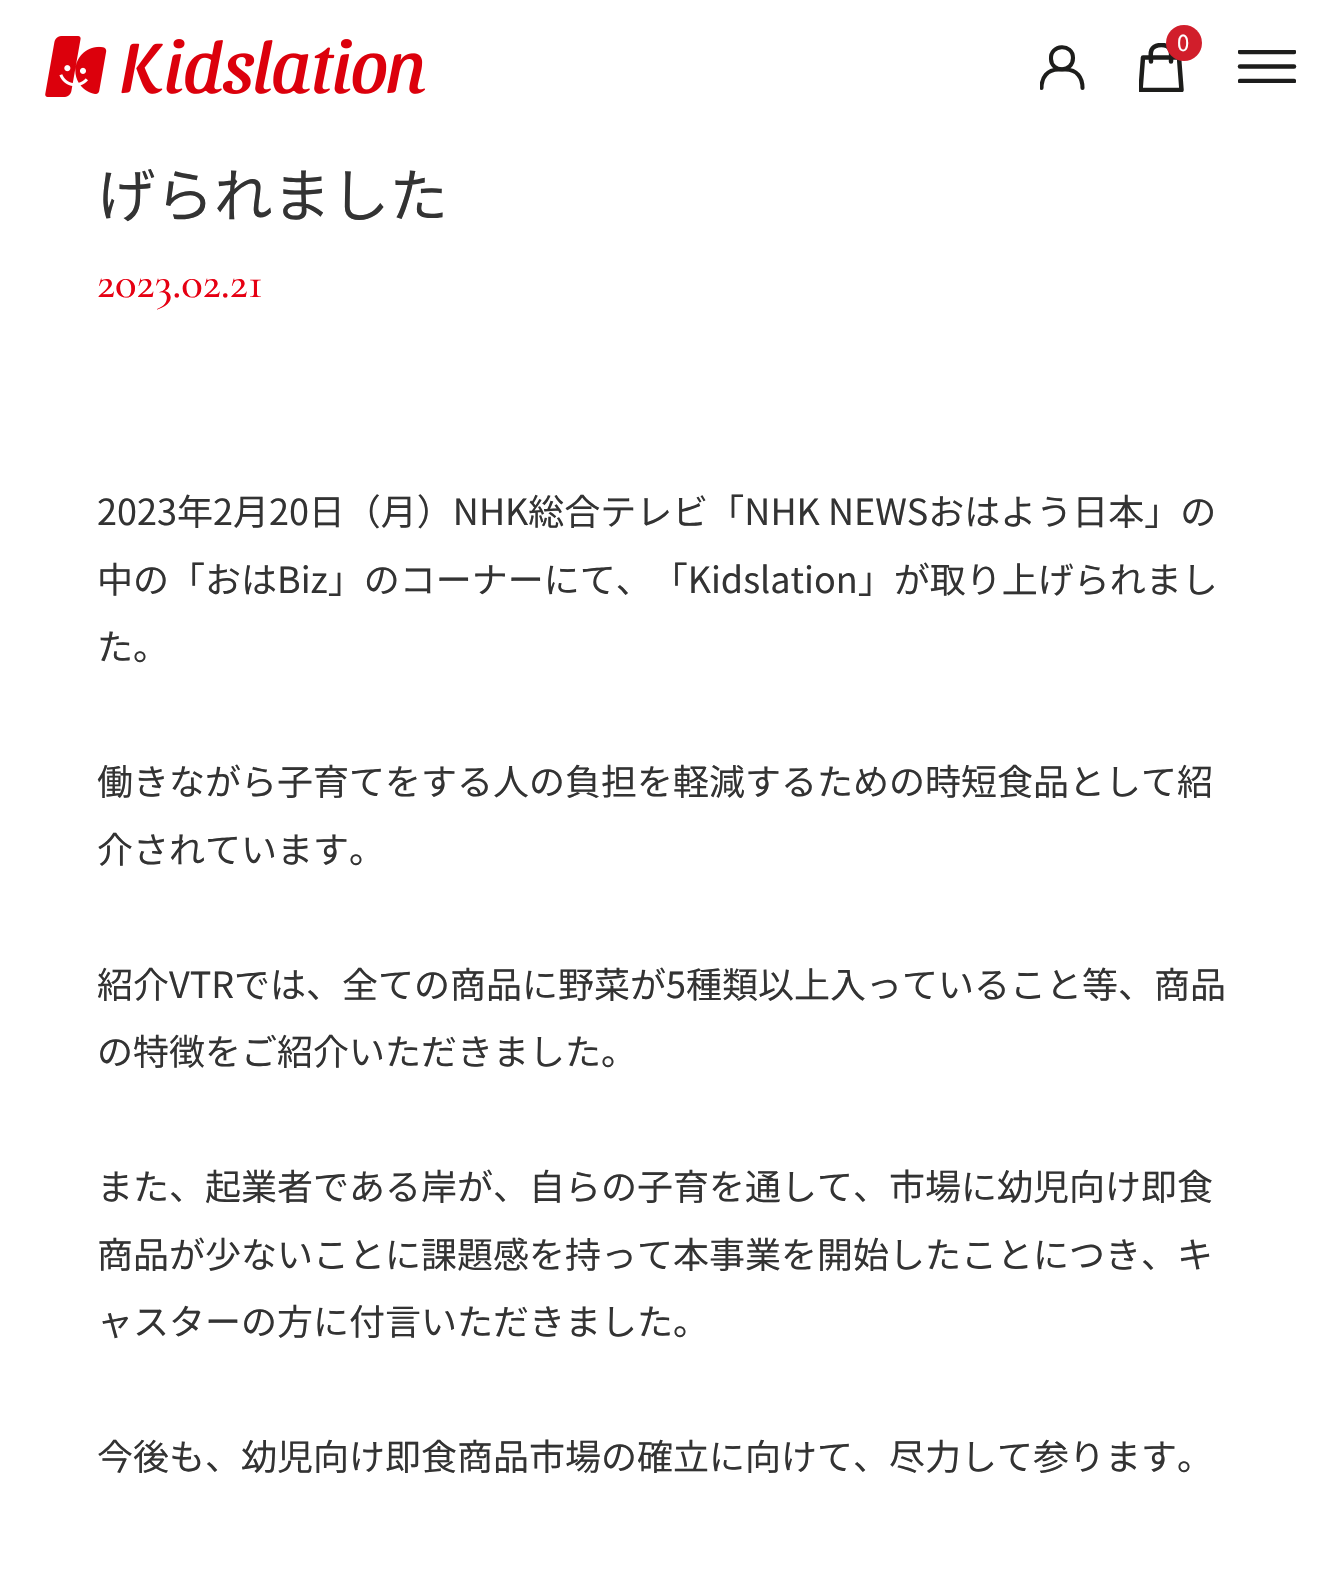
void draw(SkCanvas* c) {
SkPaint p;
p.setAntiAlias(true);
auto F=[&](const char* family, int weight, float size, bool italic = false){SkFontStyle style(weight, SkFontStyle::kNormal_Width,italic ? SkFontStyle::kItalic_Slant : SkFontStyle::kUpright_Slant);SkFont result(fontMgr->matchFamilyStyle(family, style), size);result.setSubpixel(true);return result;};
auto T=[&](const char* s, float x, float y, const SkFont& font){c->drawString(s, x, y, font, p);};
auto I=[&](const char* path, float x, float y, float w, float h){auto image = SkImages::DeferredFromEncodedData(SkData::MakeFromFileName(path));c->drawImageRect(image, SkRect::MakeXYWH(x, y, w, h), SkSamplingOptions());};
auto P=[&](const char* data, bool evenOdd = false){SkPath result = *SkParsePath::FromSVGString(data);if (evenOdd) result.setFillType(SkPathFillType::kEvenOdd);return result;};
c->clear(0xffffffff);
I("1.png",45,36,380,61);
c->save();
c->clipRect(SkRect::MakeXYWH(1139,43,45,49));
p.setStroke(true);
p.setStrokeWidth(4.5);
p.setStrokeCap(SkPaint::kRound_Cap);
p.setStrokeJoin(SkPaint::kRound_Join);
p.setColor(0xff1d1d1b);
c->drawPath(P("M1181.5 90l-2.5-32.5h-36l-2.5 32.5zm-30.5-28.5c0-3.5-1-8 .5-11.5c2-4 6-5 10-5c3.5 0 7 1 8.5 4.5c2 3 1 8.5 1 12"),p);
c->restore();
p.setStroke(false);
p.setColor(0xffd11e2b);
c->drawCircle(1184,43,18,p);
auto f1 = F("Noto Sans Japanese",400,22);
p.setColor(0xffffffff);
T("0",1177,51,f1);
p.setStroke(true);
p.setStrokeWidth(4.1);
p.setColor(0xff1d1d1b);
c->drawPath(P("M1073 58c0 14.5-21.5 15-22 1c-1-15 22-16 22-1z"),p);
c->save();
c->clipRect(SkRect::MakeXYWH(1040,43,45,49));
c->drawPath(P("M1041.5 88c0-10.5 5.5-18.5 17-18.5h7c11.5 0 17 8 17 18.5"),p);
c->restore();
c->save();
c->clipRect(SkRect::MakeXYWH(1238,50,58,33));
p.setStrokeWidth(4.5);
p.setStrokeJoin(SkPaint::kMiter_Join);
p.setColor(0xff1d1d1c);
c->drawPath(P("M1240 52h54"),p);
c->restore();
c->drawPath(P("M1240 66.5h54"),p);
c->save();
c->clipRect(SkRect::MakeXYWH(1238,50,58,33));
c->drawPath(P("M1240 81h54"),p);
c->restore();
auto f2 = F("Noto Sans Japanese",400,58.5);
p.setStroke(false);
p.setColor(0xff333333);
T("げられました",97,217,f2);
auto f3 = F("Cormorant Garamond",500,45);
p.setColor(0xffe60012);
T("2023.02.21",97,297,f3);
auto f4 = F("Noto Sans Japanese",400,36);
p.setColor(0xff333333);
T("2023年2月20日（月）NHK総合テレビ「NHK NEWSおはよう日本」の",97,525,f4);
T("中の「おはBiz」のコーナーにて、「Kidslation」が取り上げられまし",97,593,f4);
T("た。",97,660,f4);
T("働きながら子育てをする人の負担を軽減するための時短食品として紹",97,795,f4);
T("介されています。",97,863,f4);
T("紹介VTRでは、全ての商品に野菜が5種類以上入っていること等、商品",97,998,f4);
T("の特徴をご紹介いただきました。",97,1065,f4);
T("また、起業者である岸が、自らの子育を通して、市場に幼児向け即食",97,1200,f4);
T("商品が少ないことに課題感を持って本事業を開始したことにつき、キ",97,1268,f4);
T("ャスターの方に付言いただきました。",97,1335,f4);
T("今後も、幼児向け即食商品市場の確立に向けて、尽力して参ります。",97,1470,f4);
}
